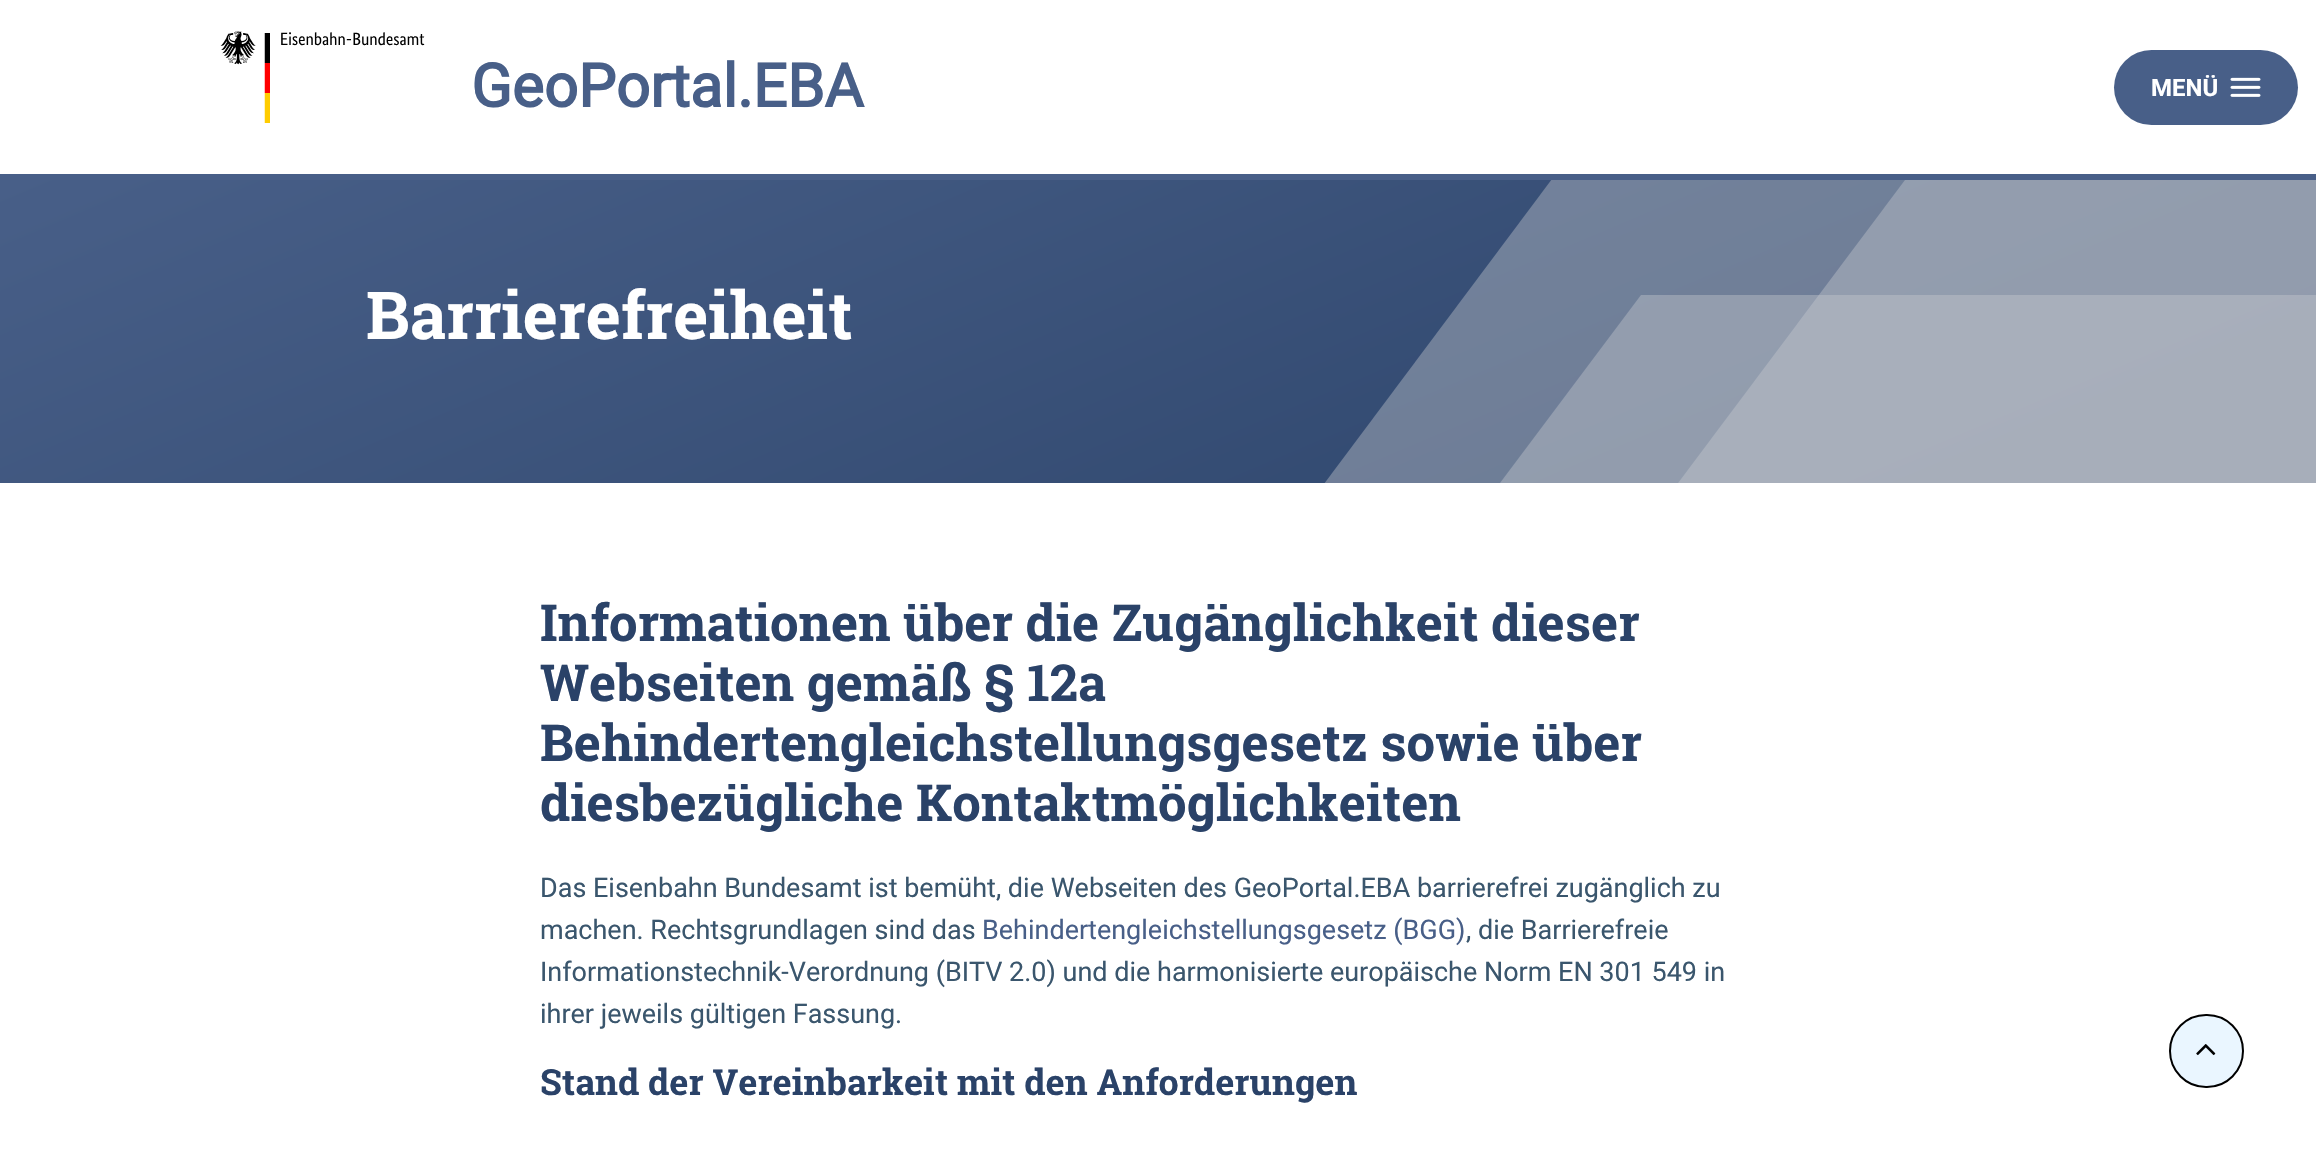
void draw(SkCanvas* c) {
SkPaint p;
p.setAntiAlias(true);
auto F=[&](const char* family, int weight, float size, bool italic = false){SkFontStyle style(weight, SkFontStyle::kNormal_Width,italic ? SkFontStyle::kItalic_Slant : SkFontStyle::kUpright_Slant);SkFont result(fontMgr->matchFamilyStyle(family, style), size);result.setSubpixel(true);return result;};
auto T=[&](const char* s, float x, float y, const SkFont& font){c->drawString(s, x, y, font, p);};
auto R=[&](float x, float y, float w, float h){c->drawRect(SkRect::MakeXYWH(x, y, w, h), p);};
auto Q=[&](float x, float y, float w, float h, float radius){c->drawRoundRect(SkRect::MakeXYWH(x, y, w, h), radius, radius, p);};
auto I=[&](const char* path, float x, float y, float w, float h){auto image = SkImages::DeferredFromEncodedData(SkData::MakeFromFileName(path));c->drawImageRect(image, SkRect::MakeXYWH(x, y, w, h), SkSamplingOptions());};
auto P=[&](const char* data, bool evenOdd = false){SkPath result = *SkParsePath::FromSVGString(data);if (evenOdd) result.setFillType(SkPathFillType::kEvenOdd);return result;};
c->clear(0xffffffff);
p.setColor(0xff485f88);
R(0,174,2316,6);
I("1.png",220,31,205,92);
auto f1 = F("Roboto",700,60);
T("GeoPortal.EBA",471,107,f1);
Q(2114,50,184,75,37.5);
auto f2 = F("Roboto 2",700,24);
p.setColor(0xffffffff);
T("MENÜ",2151,96,f2);
I("2.png",2230,77,31,20);
{
const SkColor colors[] = {0xff485f88,0xff2a4268};
const float stops[] = {0,1};
const SkPoint ends[] = {{927,-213}, {1389,876}};
p.setShader(SkGradientShader::MakeLinear(ends, colors, stops, 2, SkTileMode::kClamp));
p.setAlpha(255);
}
R(0,180,2316,303);
c->save();
c->clipRect(SkRect::MakeXYWH(1155,180,1161,303));
p.setShader(nullptr);
p.setColor(0x66c9cbcf);
c->drawPath(P("M1552 179h764v452h-1102z",true),p);
c->drawPath(P("M1905 180h411v450h-748z",true),p);
c->drawPath(P("M1641 295h675v336h-927z",true),p);
c->restore();
auto f3 = F("Roboto Slab",700,66);
p.setColor(0xffffffff);
T("Barrierefreiheit",366,339,f3);
auto f4 = F("Roboto Slab",700,51);
p.setColor(0xff2a4268);
T("Informationen über die Zugänglichkeit dieser",540,641,f4);
T("Webseiten gemäß § 12a",540,701,f4);
T("Behindertengleichstellungsgesetz sowie über",540,761,f4);
T("diesbezügliche Kontaktmöglichkeiten",540,821,f4);
auto f5 = F("Roboto",400,27);
p.setColor(0xff3a566d);
T("Das Eisenbahn Bundesamt ist bemüht, die Webseiten des GeoPortal.EBA barrierefrei zugänglich zu",540,897,f5);
T("machen. Rechtsgrundlagen sind das",540,939,f5);
p.setColor(0xff485f88);
T("Behindertengleichstellungsgesetz (BGG)",982,939,f5);
p.setColor(0xff3a566d);
T(", die Barrierefreie",1466,939,f5);
T("Informationstechnik-Verordnung (BITV 2.0) und die harmonisierte europäische Norm EN 301 549 in",540,981,f5);
T("ihrer jeweils gültigen Fassung.",540,1023,f5);
auto f6 = F("Roboto Slab",700,36);
p.setColor(0xff2a4268);
T("Stand der Vereinbarkeit mit den Anforderungen",540,1095,f6);
p.setColor(0xffeaf6ff);
c->drawRoundRect(SkRect::MakeXYWH(2170,1015,73,72),36,36,p);
p.setStroke(true);
p.setStrokeWidth(2);
p.setColor(0xff000000);
c->drawRoundRect(SkRect::MakeXYWH(2170,1015,73,72),36,36,p);
I("3.png",2196,1044,20,12);
}
